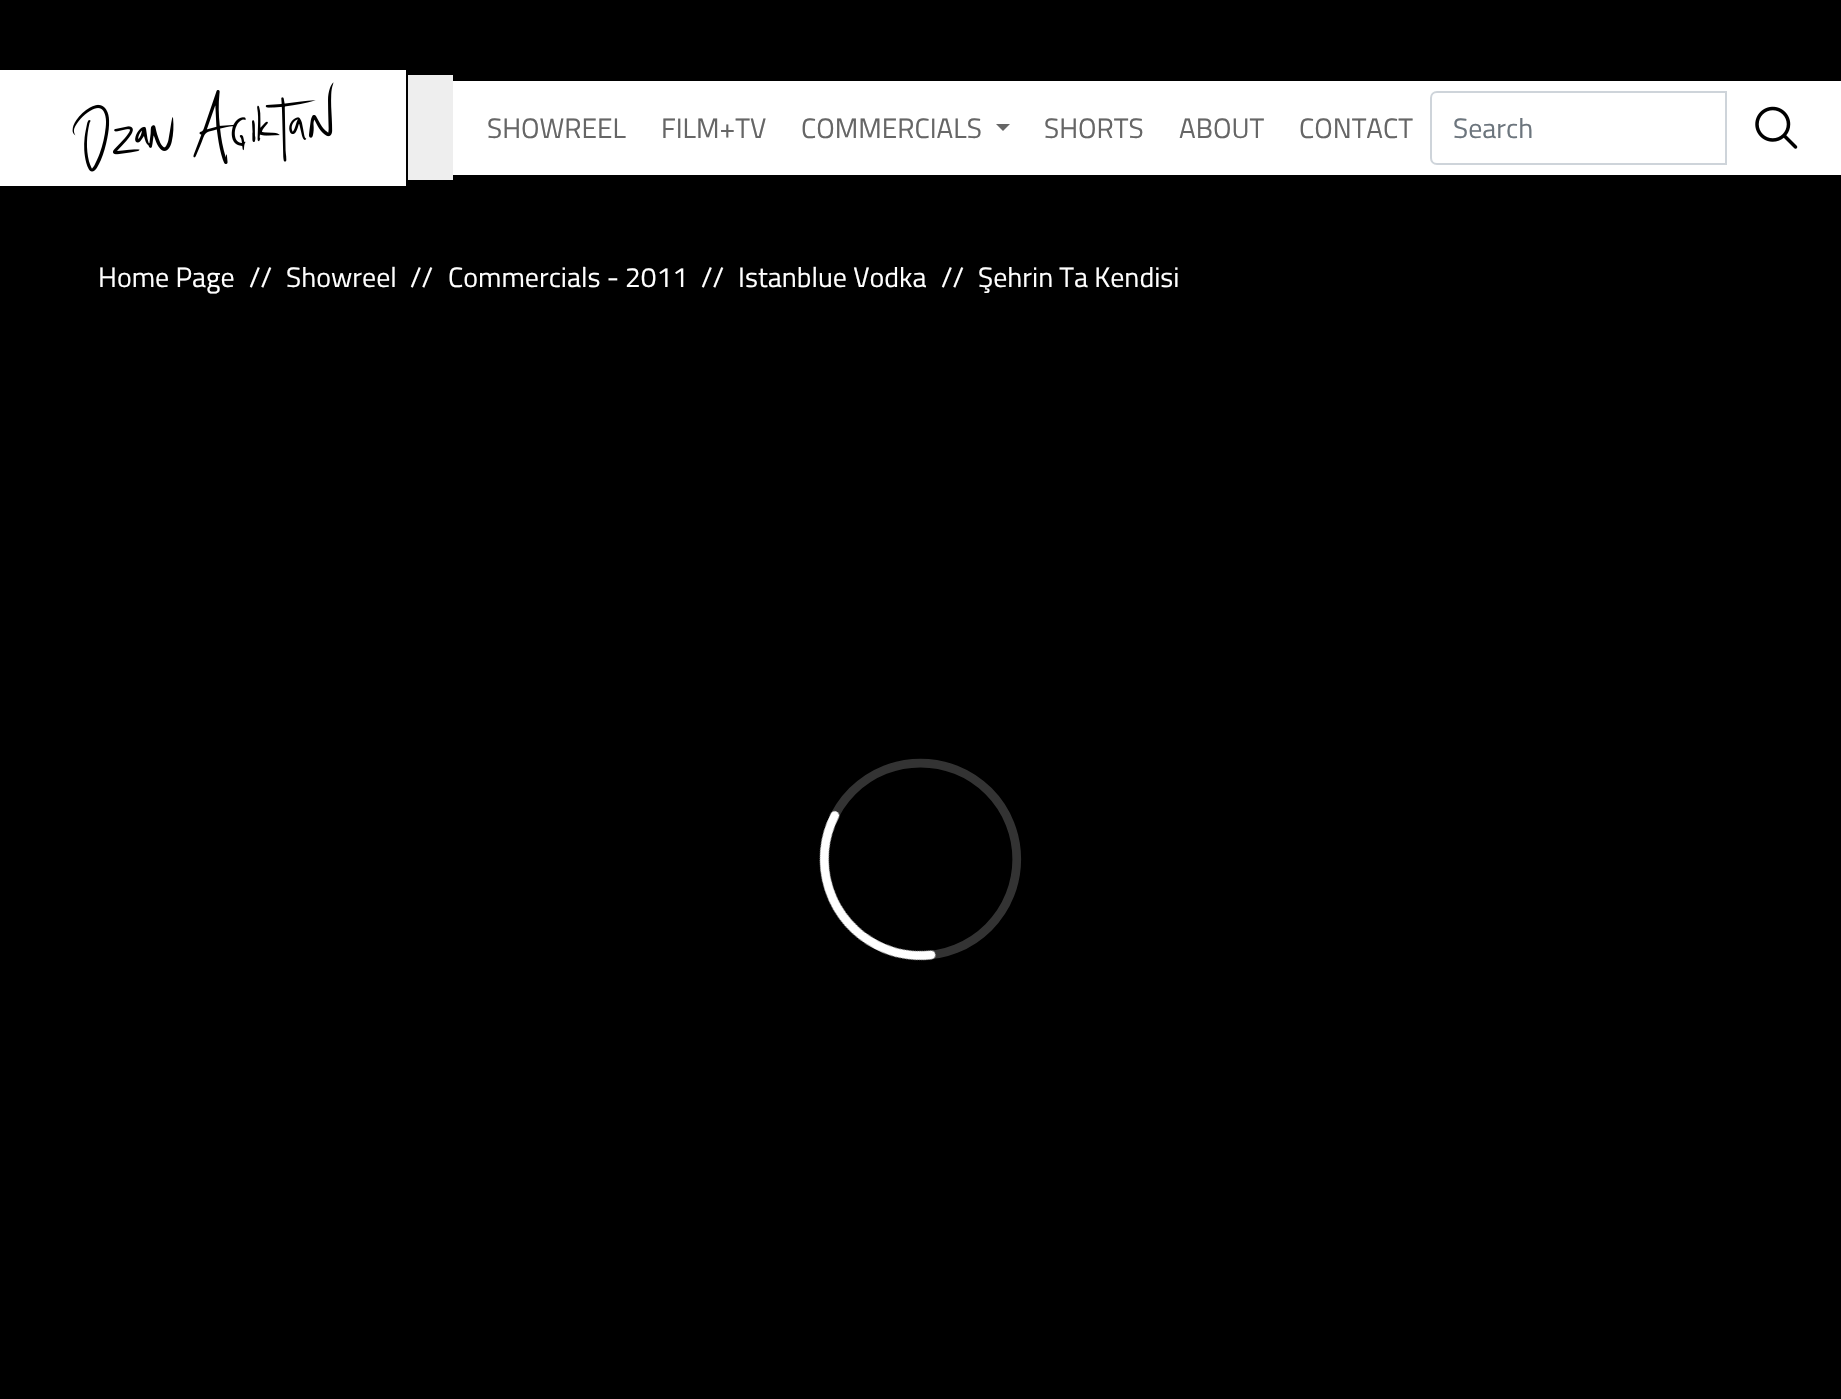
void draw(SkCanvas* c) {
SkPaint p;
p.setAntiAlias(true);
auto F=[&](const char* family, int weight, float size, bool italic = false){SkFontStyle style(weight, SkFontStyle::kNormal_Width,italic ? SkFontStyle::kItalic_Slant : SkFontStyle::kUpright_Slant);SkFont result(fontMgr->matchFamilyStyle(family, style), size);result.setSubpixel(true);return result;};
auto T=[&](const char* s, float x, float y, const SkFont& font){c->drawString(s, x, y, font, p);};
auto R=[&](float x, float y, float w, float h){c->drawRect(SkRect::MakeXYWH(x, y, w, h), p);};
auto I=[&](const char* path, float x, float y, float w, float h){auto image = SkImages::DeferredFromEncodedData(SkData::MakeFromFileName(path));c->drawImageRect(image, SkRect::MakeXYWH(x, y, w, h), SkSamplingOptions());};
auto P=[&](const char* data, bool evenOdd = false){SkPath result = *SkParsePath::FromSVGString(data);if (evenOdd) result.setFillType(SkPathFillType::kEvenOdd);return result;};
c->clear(0xff000000);
p.setColor(0xffffffff);
R(0,70,406,116);
I("1.png",72,82,262,90);
p.setColor(0xffeeeeee);
R(408,75,45,105);
p.setColor(0xffffffff);
R(453,81,1388,94);
auto f1 = F("Titillium Web",400,28);
p.setColor(0xff666666);
T("SHOWREEL",487,138,f1);
T("FILM+TV",661,138,f1);
T("COMMERCIALS",801,138,f1);
c->drawPath(P("M996 124h14l-7 7z"),p);
T("SHORTS",1044,138,f1);
T("ABOUT",1179,138,f1);
T("CONTACT",1299,138,f1);
p.setStroke(true);
p.setStrokeWidth(2);
p.setColor(0xffced4da);
c->drawPath(P("M1437 92h289v72h-289c-3.5 0-6-2.5-6-6v-60c0-3.5 2.5-6 6-6z"),p);
p.setStroke(false);
p.setColor(0xff6c757d);
T("Search",1453,138,f1);
I("2.png",1755,106,43,43);
p.setColor(0xffffffff);
T("Home Page",98,287,f1);
T("//",249,287,f1);
T("Showreel",286,287,f1);
T("//",410,287,f1);
T("Commercials - 2011",448,287,f1);
T("//",701,287,f1);
T("Istanblue Vodka",738,287,f1);
T("//",941,287,f1);
T("Şehrin Ta Kendisi",978,287,f1);
I("3.png",819,758,203,203);
}
